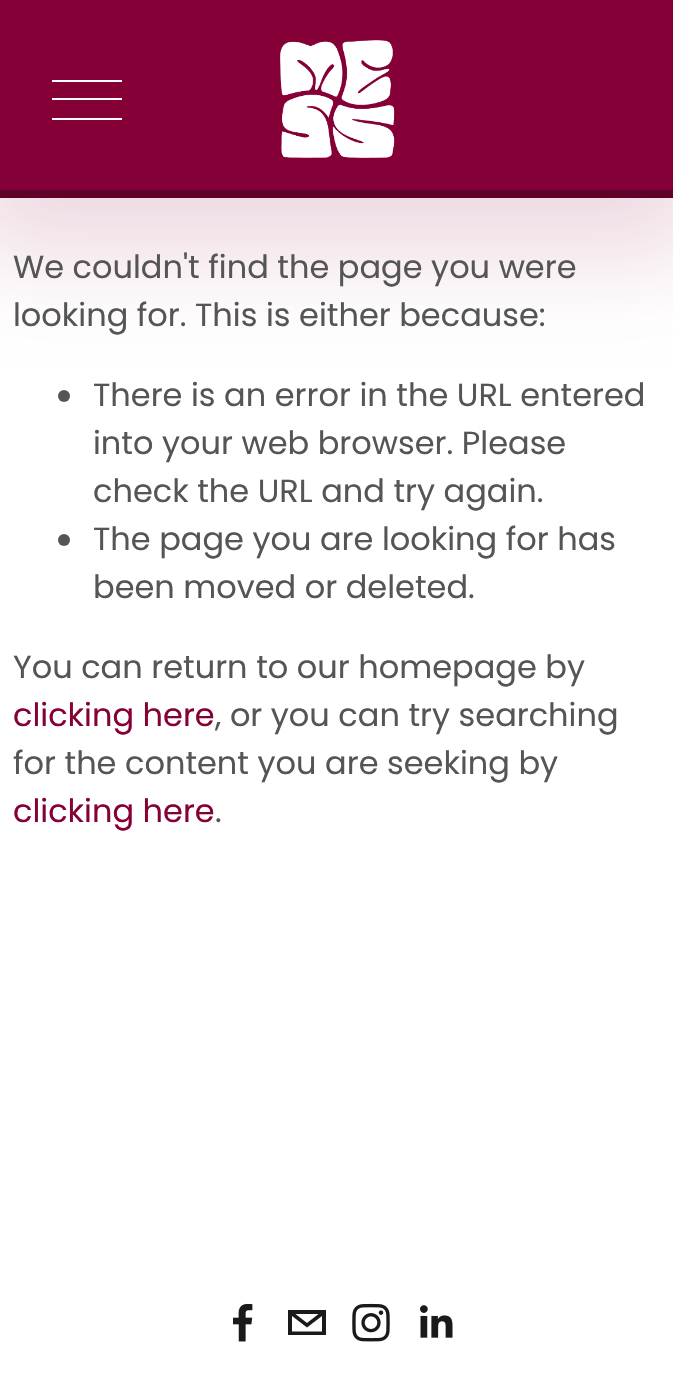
void draw(SkCanvas* c) {
SkPaint p;
p.setAntiAlias(true);
auto F=[&](const char* family, int weight, float size, bool italic = false){SkFontStyle style(weight, SkFontStyle::kNormal_Width,italic ? SkFontStyle::kItalic_Slant : SkFontStyle::kUpright_Slant);SkFont result(fontMgr->matchFamilyStyle(family, style), size);result.setSubpixel(true);return result;};
auto T=[&](const char* s, float x, float y, const SkFont& font){c->drawString(s, x, y, font, p);};
auto R=[&](float x, float y, float w, float h){c->drawRect(SkRect::MakeXYWH(x, y, w, h), p);};
auto I=[&](const char* path, float x, float y, float w, float h){auto image = SkImages::DeferredFromEncodedData(SkData::MakeFromFileName(path));c->drawImageRect(image, SkRect::MakeXYWH(x, y, w, h), SkSamplingOptions());};
auto P=[&](const char* data, bool evenOdd = false){SkPath result = *SkParsePath::FromSVGString(data);if (evenOdd) result.setFillType(SkPathFillType::kEvenOdd);return result;};
c->clear(0xffffffff);
p.setColor(0xff555555);
c->drawCircle(64,396,6,p);
p.setColor(0x26860038);
p.setMaskFilter(SkMaskFilter::MakeBlur(kNormal_SkBlurStyle, 48));
c->drawRect(SkRect::MakeXYWH(-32,-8,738,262),p);
p.setMaskFilter(nullptr);
p.setColor(0xff860038);
R(0,0,673,190);
p.setColor(0xffffffff);
R(52,80,70,2);
R(52,98,70,2);
R(52,118,70,2);
I("1.png",280,40,115,118);
p.setColor(0xff5f0128);
R(0,190,673,8);
auto f1 = F("Poppins",400,32);
p.setColor(0xff555555);
T("We couldn't find the page you were",13,278,f1);
T("looking for. This is either because:",13,326,f1);
T("There is an error in the URL entered",93,406,f1);
T("into your web browser. Please",93,454,f1);
T("check the URL and try again.",93,502,f1);
c->drawCircle(64,540,6,p);
T("The page you are looking for has",93,550,f1);
T("been moved or deleted.",93,598,f1);
T("You can return to our homepage by",13,678,f1);
p.setColor(0xff860038);
T("clicking here",13,726,f1);
p.setColor(0xff555555);
T(", or you can try searching",215,726,f1);
T("for the content you are seeking by",13,774,f1);
p.setColor(0xff860038);
T("clicking here",13,822,f1);
p.setColor(0xff555555);
T(".",215,822,f1);
I("2.png",233,1303,20,39);
p.setColor(0xff1a1a1a);
c->drawPath(P("M288 1310v25h38v-25zm30.5 4l-11.5 9l-11.5-9zm-26.5 17.5v-15.5l15 11.5l15-11.5v15.5z"),p);
I("3.png",352,1303,38,39);
I("4.png",420,1305,33,33);
}
